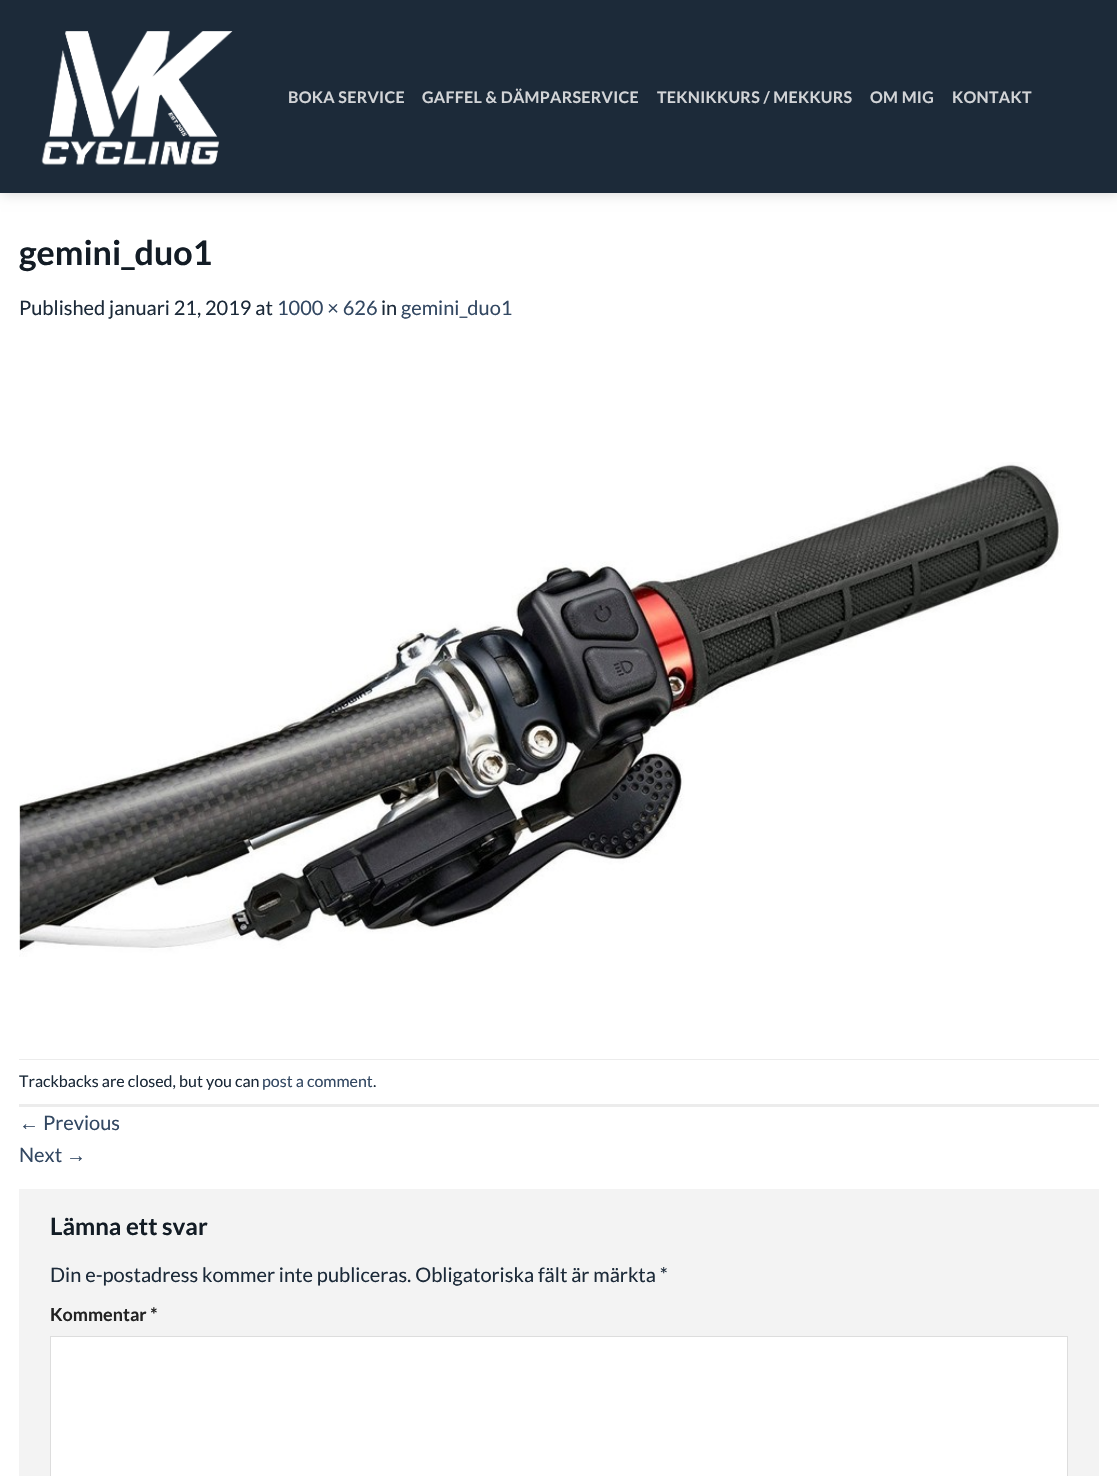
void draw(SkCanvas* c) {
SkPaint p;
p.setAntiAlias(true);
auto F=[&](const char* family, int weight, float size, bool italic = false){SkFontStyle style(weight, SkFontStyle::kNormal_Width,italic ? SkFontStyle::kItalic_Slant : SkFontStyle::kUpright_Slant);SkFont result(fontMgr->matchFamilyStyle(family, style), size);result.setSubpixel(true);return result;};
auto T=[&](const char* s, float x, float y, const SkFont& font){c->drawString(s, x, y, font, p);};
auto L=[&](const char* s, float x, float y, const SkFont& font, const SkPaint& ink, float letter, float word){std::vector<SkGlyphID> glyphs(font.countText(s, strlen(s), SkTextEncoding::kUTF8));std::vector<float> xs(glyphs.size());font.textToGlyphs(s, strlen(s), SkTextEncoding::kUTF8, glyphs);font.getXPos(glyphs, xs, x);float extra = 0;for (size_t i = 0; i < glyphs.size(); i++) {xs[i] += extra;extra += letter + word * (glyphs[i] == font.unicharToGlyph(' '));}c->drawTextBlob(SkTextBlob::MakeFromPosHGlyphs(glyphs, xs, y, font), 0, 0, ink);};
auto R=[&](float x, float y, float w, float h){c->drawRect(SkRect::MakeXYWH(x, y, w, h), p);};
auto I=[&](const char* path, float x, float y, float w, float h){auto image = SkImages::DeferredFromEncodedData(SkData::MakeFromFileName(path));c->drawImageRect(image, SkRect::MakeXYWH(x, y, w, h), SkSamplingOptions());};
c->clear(0xffffffff);
p.setColor(0x26000000);
p.setMaskFilter(SkMaskFilter::MakeBlur(kNormal_SkBlurStyle, 6));
c->drawRect(SkRect::MakeXYWH(1,1,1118,193),p);
p.setMaskFilter(nullptr);
p.setColor(0xff1c2a39);
R(0,0,1117,193);
I("1.png",41,31,192,134);
auto f1 = F("Lato",700,16);
p.setColor(0xffd2d4d7);
L("BOKA SERVICE",288,103,f1,p,.3,0);
L("GAFFEL & DÄMPARSERVICE",422,103,f1,p,.3,0);
L("TEKNIKKURS / MEKKURS",657,103,f1,p,.3,0);
L("OM MIG",870,103,f1,p,.3,0);
L("KONTAKT",952,103,f1,p,.3,0);
auto f2 = F("Lato",700,34);
p.setColor(0xff131c25);
T("gemini_duo1",19,265,f2);
auto f3 = F("Lato",400,20);
p.setColor(0xff1c2a39);
T("Published januari 21, 2019 at",19,315,f3);
p.setColor(0xff334862);
T("1000 × 626",277,315,f3);
p.setColor(0xff1c2a39);
T("in",381,315,f3);
p.setColor(0xff334862);
T("gemini_duo1",401,315,f3);
I("2.png",19,462,1044,495);
p.setColor(0xffececec);
R(19,1059,1080,1);
R(19,1104,1080,3);
auto f4 = F("Lato",400,16);
p.setColor(0xff1c2a39);
T("Trackbacks are closed, but you can",19,1087,f4);
p.setColor(0xff334862);
T("post a comment",262,1087,f4);
p.setColor(0xff1c2a39);
T(".",373,1087,f4);
auto f5 = F("Liberation Sans",400,20);
p.setColor(0xff334862);
T("←",19,1130,f5);
T("Previous",43,1130,f3);
T("Next",19,1162,f3);
T("→",66,1162,f5);
p.setColor(0xfff3f3f3);
R(19,1189,1080,287);
auto f6 = F("Lato",700,24);
p.setColor(0xff131c25);
T("Lämna ett svar",50,1235,f6);
p.setColor(0xff1c2a39);
T("Din e-postadress kommer inte publiceras. Obligatoriska fält är märkta *",50,1282,f3);
auto f7 = F("Lato",700,18);
p.setColor(0xff222222);
T("Kommentar *",50,1321,f7);
p.setColor(0xffffffff);
c->drawRect(SkRect::MakeXYWH(50.5,1336.5,1017,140),p);
p.setStroke(true);
p.setStrokeWidth(1);
p.setColor(0xffdddddd);
c->drawRect(SkRect::MakeXYWH(50.5,1336.5,1017,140),p);
}
